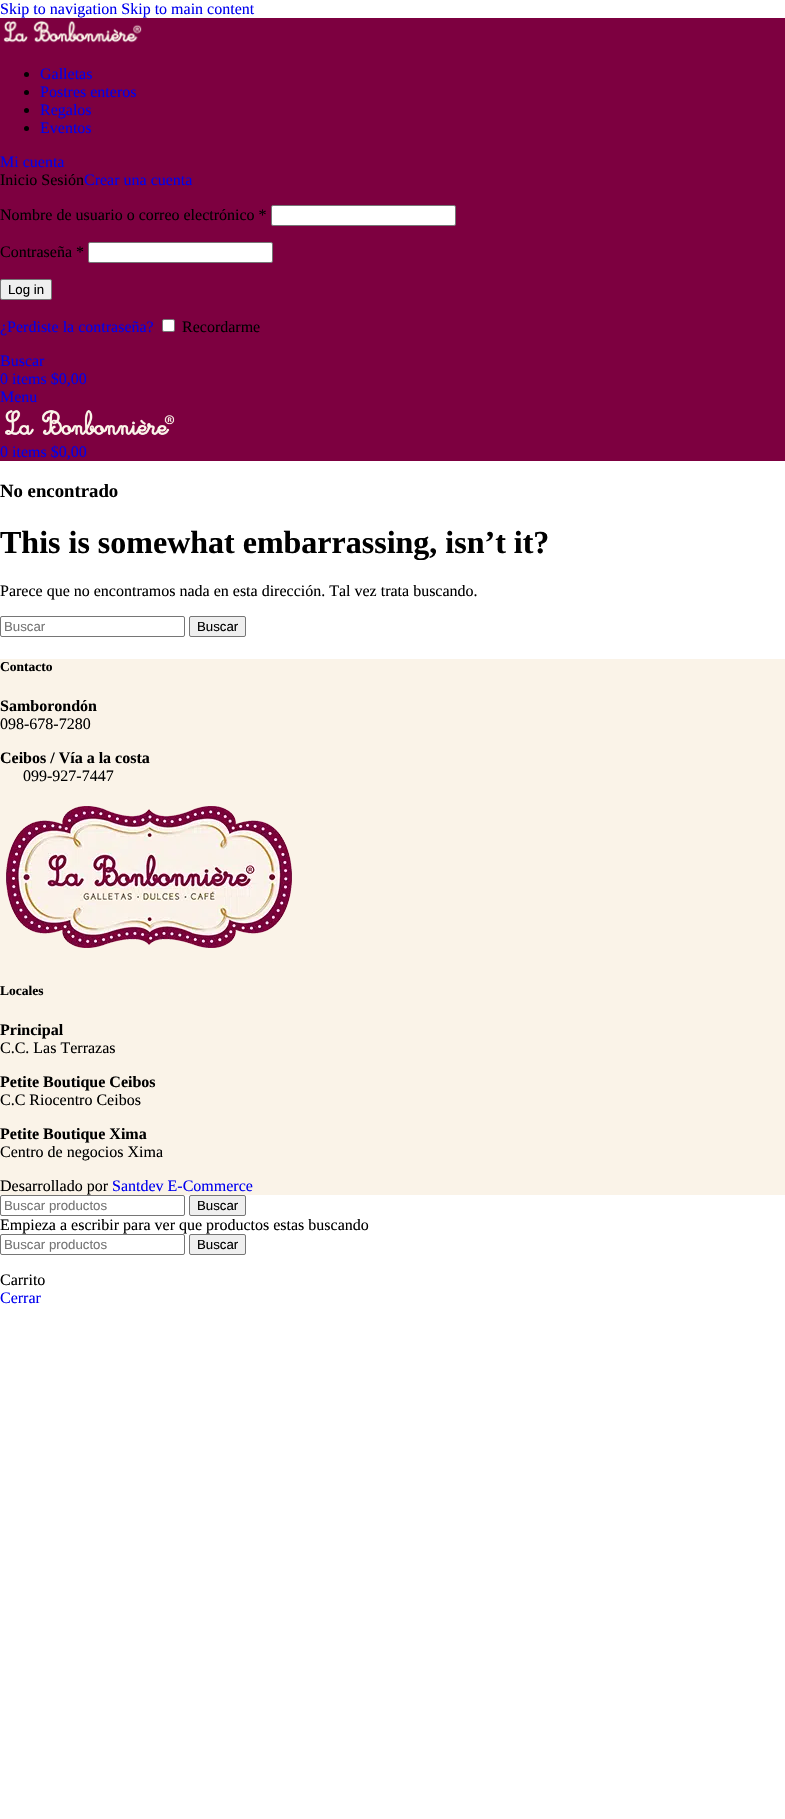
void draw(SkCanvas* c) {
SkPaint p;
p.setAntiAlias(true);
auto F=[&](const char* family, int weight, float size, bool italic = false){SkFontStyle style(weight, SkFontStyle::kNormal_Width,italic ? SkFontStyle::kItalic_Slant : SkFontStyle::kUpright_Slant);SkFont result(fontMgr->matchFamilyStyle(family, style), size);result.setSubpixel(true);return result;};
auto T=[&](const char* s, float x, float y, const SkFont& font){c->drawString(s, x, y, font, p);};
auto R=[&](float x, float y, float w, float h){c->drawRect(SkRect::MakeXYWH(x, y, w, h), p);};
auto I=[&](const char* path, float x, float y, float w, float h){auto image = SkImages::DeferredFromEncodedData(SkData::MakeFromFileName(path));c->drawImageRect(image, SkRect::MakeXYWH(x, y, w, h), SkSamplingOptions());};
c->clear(0xffffffff);
auto f1 = F("Liberation Serif",400,16);
p.setColor(0xff0000ee);
T("Skip to navigation Skip to main content",0,14,f1);
p.setColor(0xff7d0040);
R(0,18,785,443);
I("1.png",3,20,139,23);
p.setColor(0xff000000);
c->drawCircle(26.5,74.5,2.5,p);
p.setColor(0xff0000ee);
T("Galletas",40,79,f1);
p.setColor(0xff000000);
c->drawCircle(26.5,92.5,2.5,p);
p.setColor(0xff0000ee);
T("Postres enteros",40,97,f1);
p.setColor(0xff000000);
c->drawCircle(26.5,110.5,2.5,p);
p.setColor(0xff0000ee);
T("Regalos",40,115,f1);
p.setColor(0xff000000);
c->drawCircle(26.5,128.5,2.5,p);
p.setColor(0xff0000ee);
T("Eventos",40,133,f1);
T("Mi cuenta",0,167,f1);
p.setColor(0xff000000);
T("Inicio Sesión",0,185,f1);
p.setColor(0xff0000ee);
T("Crear una cuenta",84,185,f1);
p.setColor(0xff000000);
T("Nombre de usuario o correo electrónico *",0,220,f1);
p.setColor(0xffffffff);
c->drawRoundRect(SkRect::MakeXYWH(271.5,205.5,184,20),1.5,1.5,p);
p.setStroke(true);
p.setStrokeWidth(1);
p.setColor(0xff767676);
c->drawRoundRect(SkRect::MakeXYWH(271.5,205.5,184,20),1.5,1.5,p);
p.setStroke(false);
p.setColor(0xff000000);
T("Contraseña *",0,257,f1);
p.setColor(0xffffffff);
c->drawRoundRect(SkRect::MakeXYWH(88.5,242.5,184,20),1.5,1.5,p);
p.setStroke(true);
p.setColor(0xff767676);
c->drawRoundRect(SkRect::MakeXYWH(88.5,242.5,184,20),1.5,1.5,p);
p.setStroke(false);
p.setColor(0xffefefef);
c->drawRoundRect(SkRect::MakeXYWH(.5,279.5,51,20),1.5,1.5,p);
p.setStroke(true);
p.setColor(0xff767676);
c->drawRoundRect(SkRect::MakeXYWH(.5,279.5,51,20),1.5,1.5,p);
auto f2 = F("Liberation Sans",400,13.25);
p.setStroke(false);
p.setColor(0xff000000);
T("Log in",8,294,f2);
p.setColor(0xff0000ee);
T("¿Perdiste la contraseña?",0,332,f1);
p.setColor(0xffffffff);
c->drawRoundRect(SkRect::MakeXYWH(162.5,319.5,12,12),1.5,1.5,p);
p.setStroke(true);
p.setColor(0xff767676);
c->drawRoundRect(SkRect::MakeXYWH(162.5,319.5,12,12),1.5,1.5,p);
p.setStroke(false);
p.setColor(0xff000000);
T("Recordarme",182,332,f1);
p.setColor(0xff0000ee);
T("Buscar",0,366,f1);
T("0 items $0,00",0,384,f1);
T("Menu",0,402,f1);
I("2.png",5,410,170,25);
T("0 items $0,00",0,457,f1);
auto f3 = F("Liberation Serif",700,18.75);
p.setColor(0xff000000);
T("No encontrado",0,497,f3);
auto f4 = F("Liberation Serif",700,32);
T("This is somewhat embarrassing, isn’t it?",0,553,f4);
T("Parece que no encontramos nada en esta dirección. Tal vez trata buscando.",0,596,f1);
p.setStroke(true);
p.setColor(0xff767676);
c->drawRoundRect(SkRect::MakeXYWH(.5,616.5,184,20),1.5,1.5,p);
p.setStroke(false);
p.setColor(0xff757575);
T("Buscar",4,631,f2);
p.setColor(0xffefefef);
c->drawRoundRect(SkRect::MakeXYWH(189.5,616.5,56,20),1.5,1.5,p);
p.setStroke(true);
p.setColor(0xff767676);
c->drawRoundRect(SkRect::MakeXYWH(189.5,616.5,56,20),1.5,1.5,p);
p.setStroke(false);
p.setColor(0xff000000);
T("Buscar",197,631,f2);
p.setColor(0xfffaf3e8);
R(0,659,785,536);
auto f5 = F("Liberation Serif",700,13.5);
p.setColor(0xff000000);
T("Contacto",0,671,f5);
auto f6 = F("Liberation Serif",700,16);
T("Samborondón",0,711,f6);
T("098-678-7280",0,729,f1);
T("Ceibos / Vía a la costa",0,763,f6);
T("099-927-7447",23,781,f1);
I("3.png",6,806,286,142);
T("Locales",0,995,f5);
T("Principal",0,1035,f6);
T("C.C. Las Terrazas",0,1053,f1);
T("Petite Boutique Ceibos",0,1087,f6);
T("C.C Riocentro Ceibos",0,1105,f1);
T("Petite Boutique Xima",0,1139,f6);
T("Centro de negocios Xima",0,1157,f1);
T("Desarrollado por",0,1191,f1);
p.setColor(0xff0000ee);
T("Santdev E-Commerce",112,1191,f1);
p.setStroke(true);
p.setColor(0xff767676);
c->drawRoundRect(SkRect::MakeXYWH(.5,1195.5,184,20),1.5,1.5,p);
p.setStroke(false);
p.setColor(0xff757575);
T("Buscar productos",4,1210,f2);
p.setColor(0xffefefef);
c->drawRoundRect(SkRect::MakeXYWH(189.5,1195.5,56,20),1.5,1.5,p);
p.setStroke(true);
p.setColor(0xff767676);
c->drawRoundRect(SkRect::MakeXYWH(189.5,1195.5,56,20),1.5,1.5,p);
p.setStroke(false);
p.setColor(0xff000000);
T("Buscar",197,1210,f2);
T("Empieza a escribir para ver que productos estas buscando",0,1230,f1);
p.setStroke(true);
p.setColor(0xff767676);
c->drawRoundRect(SkRect::MakeXYWH(.5,1234.5,184,20),1.5,1.5,p);
p.setStroke(false);
p.setColor(0xff757575);
T("Buscar productos",4,1249,f2);
p.setColor(0xffefefef);
c->drawRoundRect(SkRect::MakeXYWH(189.5,1234.5,56,20),1.5,1.5,p);
p.setStroke(true);
p.setColor(0xff767676);
c->drawRoundRect(SkRect::MakeXYWH(189.5,1234.5,56,20),1.5,1.5,p);
p.setStroke(false);
p.setColor(0xff000000);
T("Buscar",197,1249,f2);
T("Carrito",0,1285,f1);
p.setColor(0xff0000ee);
T("Cerrar",0,1303,f1);
}
